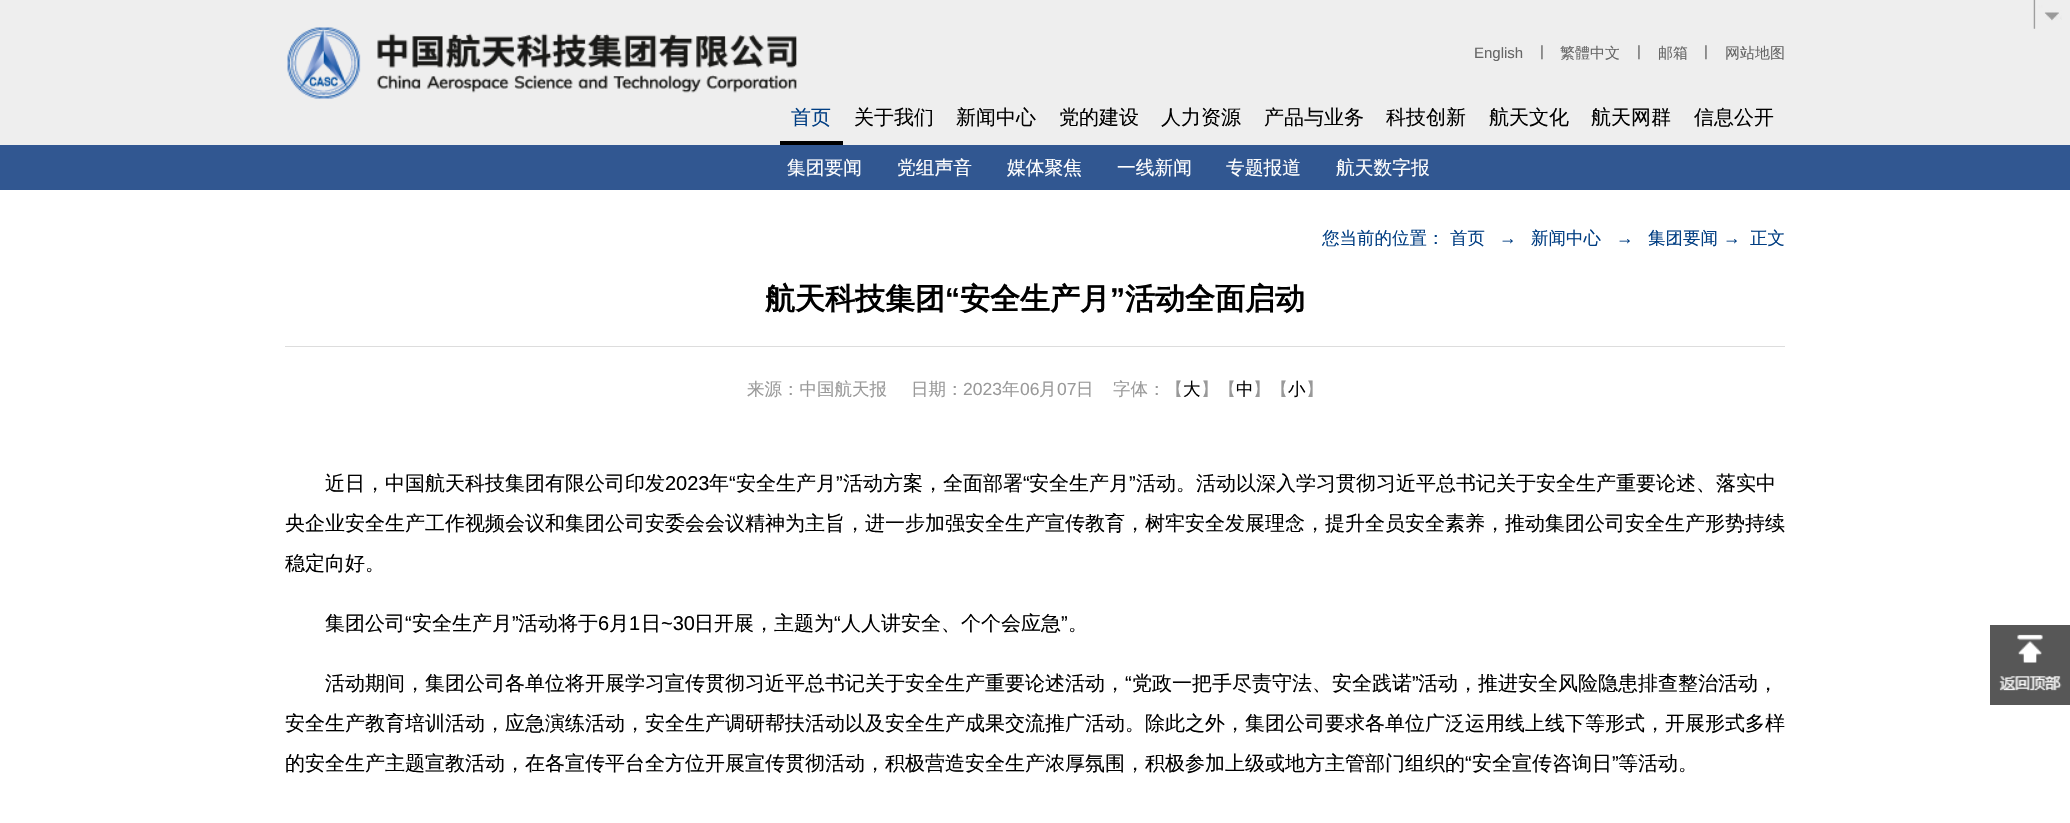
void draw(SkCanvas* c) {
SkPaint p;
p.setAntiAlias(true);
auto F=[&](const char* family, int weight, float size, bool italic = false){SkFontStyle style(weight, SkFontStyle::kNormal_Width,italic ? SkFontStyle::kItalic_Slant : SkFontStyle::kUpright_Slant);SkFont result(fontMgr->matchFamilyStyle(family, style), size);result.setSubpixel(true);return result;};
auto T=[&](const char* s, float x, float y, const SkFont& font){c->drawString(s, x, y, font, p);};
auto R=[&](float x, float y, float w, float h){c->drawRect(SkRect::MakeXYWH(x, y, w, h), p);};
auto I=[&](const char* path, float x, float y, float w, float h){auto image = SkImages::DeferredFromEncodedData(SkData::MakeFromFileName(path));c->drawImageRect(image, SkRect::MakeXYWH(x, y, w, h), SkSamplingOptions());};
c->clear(0xffffffff);
p.setColor(0xffeeeeee);
R(0,0,2070,145);
I("1.png",2033,0,29,29);
I("2.png",287,27,510,72);
auto f1 = F("Liberation Sans",400,15);
p.setColor(0xff666666);
T("English",1474,58,f1);
T("|",1540,56,f1);
auto f2 = F("WenQuanYi Zen Hei",500,15);
T("繁體中文",1560,58,f2);
T("|",1637,56,f1);
T("邮箱",1658,58,f2);
T("|",1704,56,f1);
T("网站地图",1725,58,f2);
p.setColor(0xff000000);
R(780,141,63,4);
auto f3 = F("WenQuanYi Zen Hei",500,20);
p.setColor(0xff003d82);
T("首页",791,124,f3);
p.setColor(0xff000000);
T("关于我们",854,124,f3);
T("新闻中心",956,124,f3);
T("党的建设",1059,124,f3);
T("人力资源",1161,124,f3);
T("产品与业务",1264,124,f3);
T("科技创新",1386,124,f3);
T("航天文化",1489,124,f3);
T("航天网群",1591,124,f3);
T("信息公开",1694,124,f3);
p.setColor(0xff315791);
R(0,145,2070,45);
auto f4 = F("WenQuanYi Zen Hei",500,18.75);
p.setColor(0xffffffff);
T("集团要闻",787,174,f4);
T("党组声音",897,174,f4);
T("媒体聚焦",1007,174,f4);
T("一线新闻",1117,174,f4);
T("专题报道",1226,174,f4);
T("航天数字报",1336,174,f4);
auto f5 = F("WenQuanYi Zen Hei",500,17.5);
p.setColor(0xff003d82);
T("您当前的位置：",1322,244,f5);
T("首页",1450,244,f5);
auto f6 = F("Liberation Sans",400,17.5);
T("→",1499,244,f6);
T("新闻中心",1531,244,f5);
T("→",1616,244,f6);
T("集团要闻",1648,244,f5);
T("→",1723,244,f6);
T("正文",1750,244,f5);
p.setColor(0xffdddddd);
R(285,346,1500,1);
auto f7 = F("WenQuanYi Zen Hei",700,30);
p.setColor(0xff000000);
T("航天科技集团",765,309,f7);
auto f8 = F("Liberation Sans",700,30);
T("“",945,309,f8);
T("安全生产月",960,309,f7);
T("”",1110,309,f8);
T("活动全面启动",1125,309,f7);
p.setColor(0xff999999);
T("来源：中国航天报",747,395,f5);
T("日期：",911,395,f5);
T("2023",963,395,f6);
T("年",1002,395,f5);
T("06",1020,395,f6);
T("月",1039,395,f5);
T("07",1057,395,f6);
T("日",1076,395,f5);
T("字体：【",1113,395,f5);
p.setColor(0xff000000);
T("大",1183,395,f5);
p.setColor(0xff999999);
T("】【",1201,395,f5);
p.setColor(0xff000000);
T("中",1236,395,f5);
p.setColor(0xff999999);
T("】【",1253,395,f5);
p.setColor(0xff000000);
T("小",1288,395,f5);
p.setColor(0xff999999);
T("】",1306,395,f5);
p.setColor(0xff000000);
T("近日，中国航天科技集团有限公司印发",325,490,f3);
auto f9 = F("Liberation Sans",400,20);
T("2023",665,490,f9);
T("年",709,490,f3);
T("“",729,490,f9);
T("安全生产月",736,490,f3);
T("”",836,490,f9);
T("活动方案，全面部署",843,490,f3);
T("“",1023,490,f9);
T("安全生产月",1029,490,f3);
T("”",1129,490,f9);
T("活动。活动以深入学习贯彻习近平总书记关于安全生产重要论述、落实中",1136,490,f3);
T("央企业安全生产工作视频会议和集团公司安委会会议精神为主旨，进一步加强安全生产宣传教育，树牢安全发展理念，提升全员安全素养，推动集团公司安全生产形势持续",285,530,f3);
T("稳定向好。",285,570,f3);
T("集团公司",325,630,f3);
T("“",405,630,f9);
T("安全生产月",412,630,f3);
T("”",512,630,f9);
T("活动将于",518,630,f3);
T("6",598,630,f9);
T("月",609,630,f3);
T("1",629,630,f9);
T("日",641,630,f3);
T("~30",661,630,f9);
T("日开展，主题为",694,630,f3);
T("“",834,630,f9);
T("人人讲安全、个个会应急",841,630,f3);
T("”",1061,630,f9);
T("。",1068,630,f3);
T("活动期间，集团公司各单位将开展学习宣传贯彻习近平总书记关于安全生产重要论述活动，",325,690,f3);
T("“",1125,690,f9);
T("党政一把手尽责守法、安全践诺",1132,690,f3);
T("”",1412,690,f9);
T("活动，推进安全风险隐患排查整治活动，",1418,690,f3);
T("安全生产教育培训活动，应急演练活动，安全生产调研帮扶活动以及安全生产成果交流推广活动。除此之外，集团公司要求各单位广泛运用线上线下等形式，开展形式多样",285,730,f3);
T("的安全生产主题宣教活动，在各宣传平台全方位开展宣传贯彻活动，积极营造安全生产浓厚氛围，积极参加上级或地方主管部门组织的",285,770,f3);
T("“",1465,770,f9);
T("安全宣传咨询日",1472,770,f3);
T("”",1612,770,f9);
T("等活动。",1618,770,f3);
I("3.png",1990,625,80,80);
}
